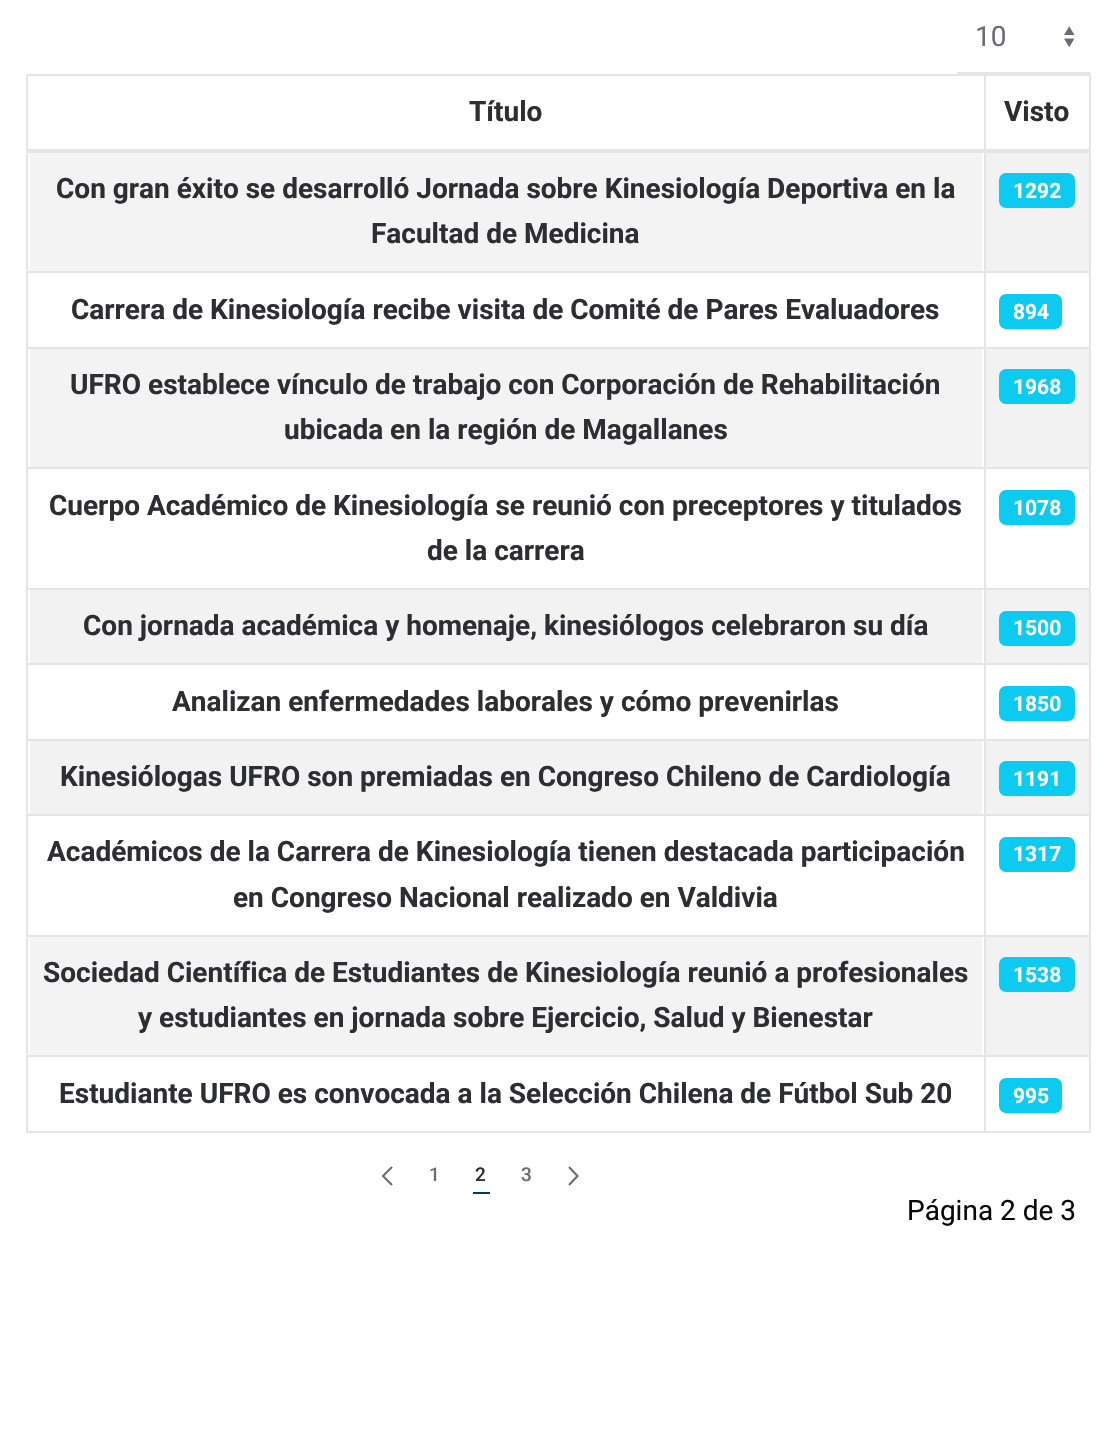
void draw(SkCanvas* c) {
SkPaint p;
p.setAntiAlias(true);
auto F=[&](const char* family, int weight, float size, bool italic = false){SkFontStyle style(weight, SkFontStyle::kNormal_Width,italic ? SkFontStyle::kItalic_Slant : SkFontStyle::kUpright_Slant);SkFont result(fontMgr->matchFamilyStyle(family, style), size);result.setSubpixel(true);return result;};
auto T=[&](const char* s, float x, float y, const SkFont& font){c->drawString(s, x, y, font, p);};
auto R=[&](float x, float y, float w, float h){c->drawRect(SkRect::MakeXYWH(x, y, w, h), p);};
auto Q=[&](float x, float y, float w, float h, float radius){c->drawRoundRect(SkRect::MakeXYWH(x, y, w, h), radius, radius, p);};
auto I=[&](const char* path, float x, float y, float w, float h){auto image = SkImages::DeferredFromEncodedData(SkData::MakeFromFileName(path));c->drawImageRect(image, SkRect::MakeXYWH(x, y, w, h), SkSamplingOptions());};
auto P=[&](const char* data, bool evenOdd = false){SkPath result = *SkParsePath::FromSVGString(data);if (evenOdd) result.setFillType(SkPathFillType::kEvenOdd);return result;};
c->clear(0xffffffff);
I("1.png",1064,26,11,22);
p.setColor(0xffe5e5e7);
R(957,72,133,2);
auto f1 = F("Roboto",400,28);
p.setColor(0xff6c6d74);
T("10",975,46,f1);
p.setColor(0xffe5e5e7);
R(26,74,1064,2);
auto f2 = F("Roboto",700,28);
p.setColor(0xff2d2e33);
T("Título",469,121,f2);
T("Visto",1004,121,f2);
p.setColor(0xffe5e5e7);
R(26,149,1064,4);
p.setColor(0xfff3f3f3);
R(30,153,952,118);
p.setColor(0xff2d2e33);
T("Con gran éxito se desarrolló Jornada sobre Kinesiología Deportiva en la",56,198,f2);
T("Facultad de Medicina",371,243,f2);
p.setColor(0xfff2f2f2);
R(986,153,103,118);
p.setColor(0xff0dcaf0);
Q(999,173,76,35,7);
auto f3 = F("Roboto",700,21);
p.setColor(0xffffffff);
T("1292",1013,198,f3);
p.setColor(0xffe5e5e7);
R(26,271,1064,2);
p.setColor(0xff2d2e33);
T("Carrera de Kinesiología recibe visita de Comité de Pares Evaluadores",71,319,f2);
p.setColor(0xff0dcaf0);
Q(999,294,63,35,7);
p.setColor(0xffffffff);
T("894",1013,319,f3);
p.setColor(0xffe5e5e7);
R(26,347,1064,2);
p.setColor(0xfff3f3f3);
R(30,349,952,118);
p.setColor(0xff2d2e33);
T("UFRO establece vínculo de trabajo con Corporación de Rehabilitación",70,394,f2);
T("ubicada en la región de Magallanes",284,439,f2);
p.setColor(0xfff2f2f2);
R(986,349,103,118);
p.setColor(0xff0dcaf0);
Q(999,369,76,35,7);
p.setColor(0xffffffff);
T("1968",1013,394,f3);
p.setColor(0xffe5e5e7);
R(26,467,1064,2);
p.setColor(0xff2d2e33);
T("Cuerpo Académico de Kinesiología se reunió con preceptores y titulados",49,515,f2);
T("de la carrera",427,560,f2);
p.setColor(0xff0dcaf0);
Q(999,490,76,35,7);
p.setColor(0xffffffff);
T("1078",1013,515,f3);
p.setColor(0xffe5e5e7);
R(26,588,1064,2);
p.setColor(0xfff2f2f2);
R(30,590,952,73);
p.setColor(0xff2d2e33);
T("Con jornada académica y homenaje, kinesiólogos celebraron su día",83,635,f2);
p.setColor(0xfff2f2f2);
R(986,590,103,73);
p.setColor(0xff0dcaf0);
Q(999,611,76,35,7);
p.setColor(0xffffffff);
T("1500",1013,635,f3);
p.setColor(0xffe5e5e7);
R(26,663,1064,2);
p.setColor(0xff2d2e33);
T("Analizan enfermedades laborales y cómo prevenirlas",172,711,f2);
p.setColor(0xff0dcaf0);
Q(999,686,76,35,7);
p.setColor(0xffffffff);
T("1850",1013,711,f3);
p.setColor(0xffe5e5e7);
R(26,739,1064,2);
p.setColor(0xfff2f2f2);
R(30,741,952,73);
p.setColor(0xff2d2e33);
T("Kinesiólogas UFRO son premiadas en Congreso Chileno de Cardiología",60,786,f2);
p.setColor(0xfff2f2f2);
R(986,741,103,73);
p.setColor(0xff0dcaf0);
Q(999,761,76,35,7);
p.setColor(0xffffffff);
T("1191",1013,786,f3);
p.setColor(0xffe5e5e7);
R(26,814,1064,2);
p.setColor(0xff2d2e33);
T("Académicos de la Carrera de Kinesiología tienen destacada participación",47,861,f2);
T("en Congreso Nacional realizado en Valdivia",233,907,f2);
p.setColor(0xff0dcaf0);
Q(999,837,76,35,7);
p.setColor(0xffffffff);
T("1317",1013,861,f3);
p.setColor(0xffe5e5e7);
R(26,935,1064,2);
p.setColor(0xfff3f3f3);
R(30,937,952,118);
p.setColor(0xff2d2e33);
T("Sociedad Científica de Estudiantes de Kinesiología reunió a profesionales",43,982,f2);
T("y estudiantes en jornada sobre Ejercicio, Salud y Bienestar",138,1027,f2);
p.setColor(0xfff2f2f2);
R(986,937,103,118);
p.setColor(0xff0dcaf0);
Q(999,957,76,35,7);
p.setColor(0xffffffff);
T("1538",1013,982,f3);
p.setColor(0xffe5e5e7);
R(26,1055,1064,2);
R(26,1131,1064,2);
R(26,74,2,1058);
p.setColor(0xff2d2e33);
T("Estudiante UFRO es convocada a la Selección Chilena de Fútbol Sub 20",59,1103,f2);
p.setColor(0xffe5e5e7);
R(1089,74,2,1058);
R(984,74,2,1058);
p.setColor(0xff0dcaf0);
Q(999,1078,63,35,7);
p.setColor(0xffffffff);
T("995",1013,1103,f3);
p.setStroke(true);
p.setStrokeWidth(2.1);
p.setColor(0xff6c6d74);
c->drawPath(P("M392 1167l-9 9l9 9"),p);
auto f4 = F("Roboto",500,19);
p.setStroke(false);
T("1",429,1181,f4);
p.setColor(0xff00396c);
R(473,1192,17,2);
p.setColor(0xff2d2e33);
T("2",475,1181,f4);
p.setColor(0xff6c6d74);
T("3",521,1181,f4);
p.setStroke(true);
c->drawPath(P("M569 1167l8.5 9l-8.5 9"),p);
p.setStroke(false);
p.setColor(0xff09090a);
T("Página 2 de 3",907,1220,f1);
}
